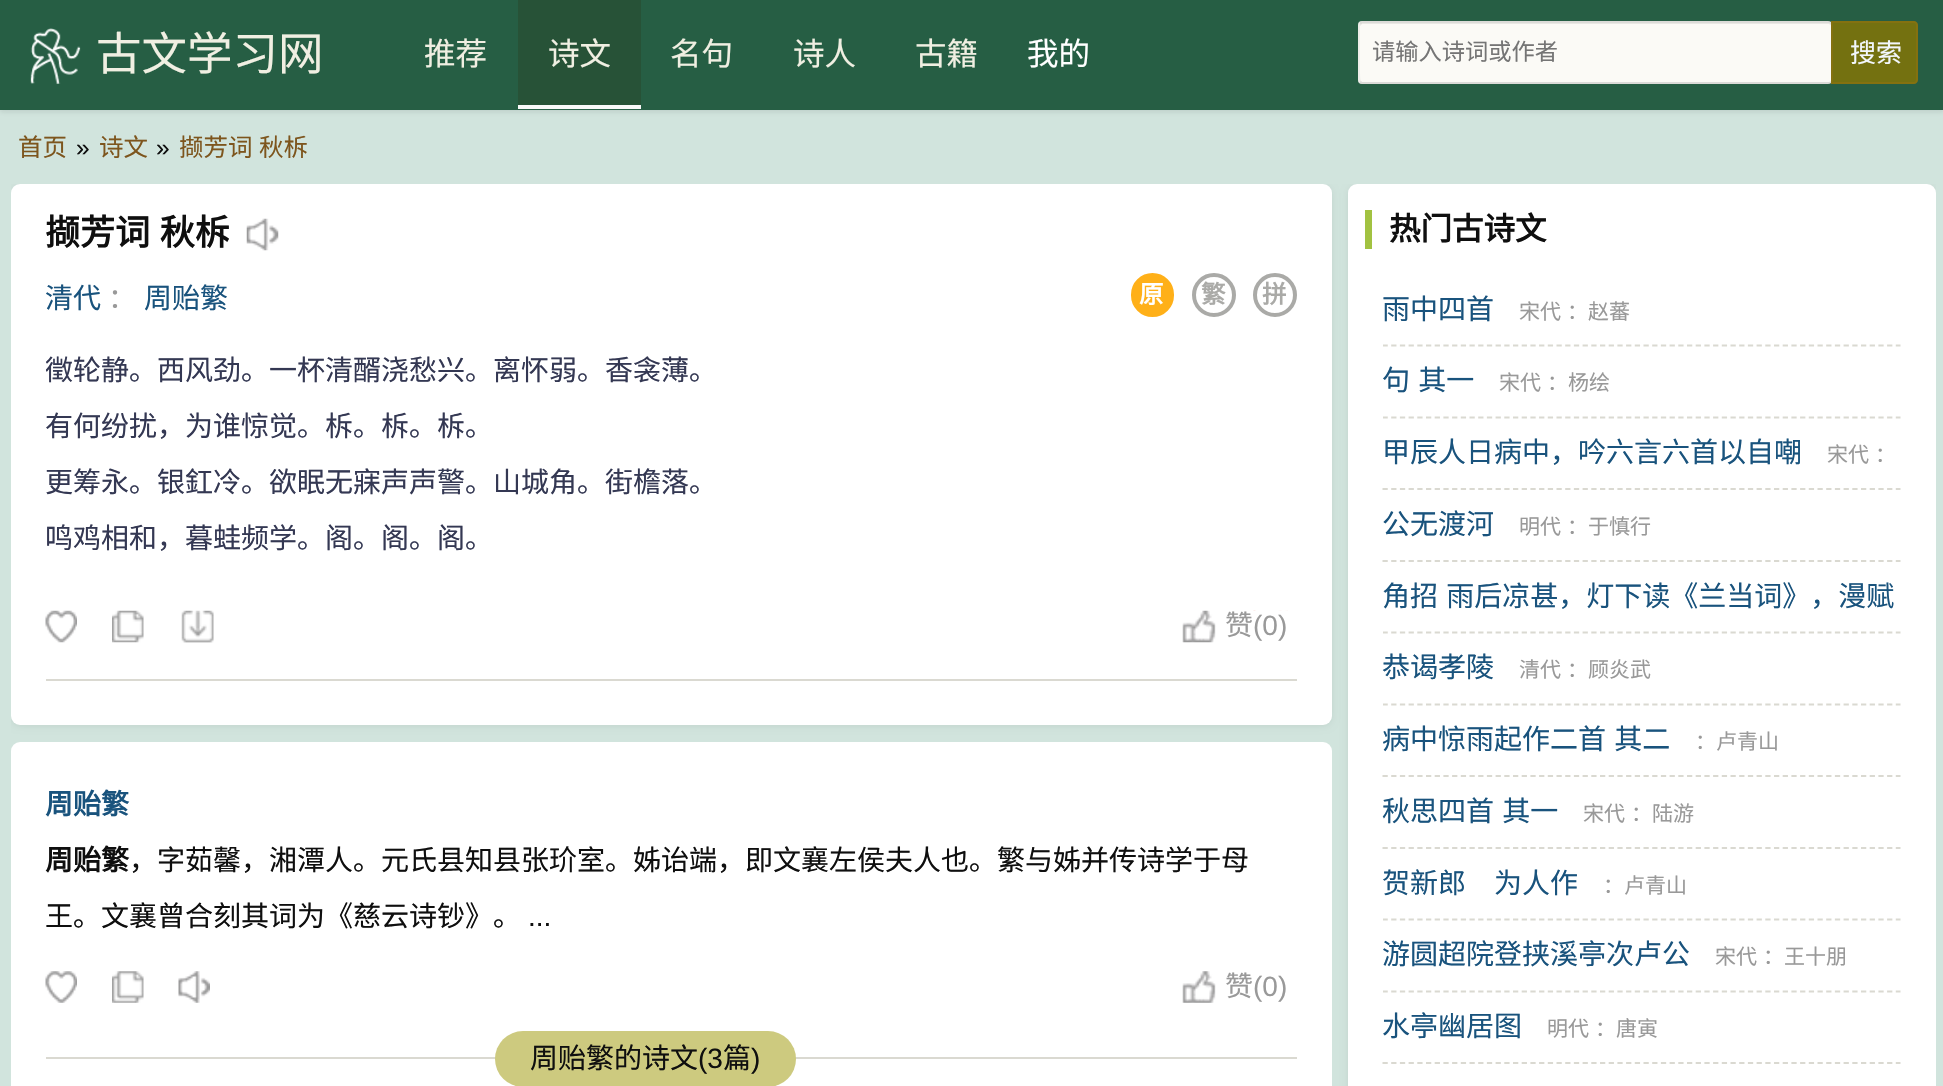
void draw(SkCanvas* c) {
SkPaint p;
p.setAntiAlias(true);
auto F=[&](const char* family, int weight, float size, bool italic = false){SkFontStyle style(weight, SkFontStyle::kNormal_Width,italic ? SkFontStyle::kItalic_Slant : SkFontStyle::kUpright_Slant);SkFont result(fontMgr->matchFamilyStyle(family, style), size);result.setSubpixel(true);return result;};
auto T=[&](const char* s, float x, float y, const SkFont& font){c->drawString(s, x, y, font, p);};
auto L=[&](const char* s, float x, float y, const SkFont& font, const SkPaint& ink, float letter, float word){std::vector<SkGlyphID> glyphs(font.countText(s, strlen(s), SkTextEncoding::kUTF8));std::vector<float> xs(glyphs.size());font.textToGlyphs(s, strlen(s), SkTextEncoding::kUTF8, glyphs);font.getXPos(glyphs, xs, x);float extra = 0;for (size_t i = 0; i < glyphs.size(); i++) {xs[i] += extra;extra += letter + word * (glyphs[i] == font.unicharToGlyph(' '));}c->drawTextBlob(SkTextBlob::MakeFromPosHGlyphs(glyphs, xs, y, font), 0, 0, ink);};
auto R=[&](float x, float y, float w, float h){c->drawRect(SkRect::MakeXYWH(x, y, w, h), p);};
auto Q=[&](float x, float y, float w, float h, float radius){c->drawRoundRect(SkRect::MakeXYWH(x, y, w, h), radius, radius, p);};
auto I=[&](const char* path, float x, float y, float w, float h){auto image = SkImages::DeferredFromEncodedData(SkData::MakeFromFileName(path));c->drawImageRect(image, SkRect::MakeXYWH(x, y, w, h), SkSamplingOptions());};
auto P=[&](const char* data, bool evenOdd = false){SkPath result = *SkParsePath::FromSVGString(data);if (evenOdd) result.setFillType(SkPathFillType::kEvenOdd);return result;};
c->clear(0xffd1e4dd);
p.setColor(0x1a121212);
p.setMaskFilter(SkMaskFilter::MakeBlur(kNormal_SkBlurStyle, 2.5));
c->drawRect(SkRect::MakeXYWH(0,2,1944,110),p);
p.setMaskFilter(nullptr);
p.setColor(0xff265e44);
R(0,0,1943,110);
I("1.png",30,28,51,56);
auto f1 = F("Noto Sans CJK SC",400,45.5);
p.setColor(0xfff0efe2);
T("古文学习网",96,70,f1);
auto f2 = F("Noto Sans CJK SC",400,31.5);
T("推荐",424,65,f2);
p.setColor(0xff275237);
R(518,0,123,105);
p.setColor(0xfff9f9f9);
R(518,105,123,4);
p.setColor(0xfff0efe2);
T("诗文",548,65,f2);
T("名句",670,65,f2);
T("诗人",793,65,f2);
T("古籍",915,65,f2);
p.setColor(0xffffffff);
T("我的",1027,65,f2);
p.setColor(0xfffbfaf6);
Q(1358,21,474,63,4);
p.setColor(0x12000000);
c->drawPath(P("M1362 24h467l3 2v50v-52c0 0-1-1-3-1h-467c-1 0-2 1-2 1v57v-55z"),p);
p.setColor(0x1f000000);
c->drawPath(P("M1362 21l-3 1l2 2l1-1h467l3 1c0-1-1-3-3-3z"),p);
c->drawPath(P("M1362 84h467c2 0 3-1 3-3v-10v10l-3 1h-467l-1-1l-2 2z"),p);
p.setColor(0x0d000000);
c->drawPath(P("M1358 24v56l1 3l2-2c-2-1-1-51-1-57h1l-2-2z"),p);
auto f3 = F("Noto Sans CJK SC",400,23.25);
p.setColor(0xff757575);
T("请输入诗词或作者",1372,60,f3);
p.setColor(0xff747110);
c->drawPath(P("M1832 22h82c1.5 0 3 1.5 3 3v55c0 1.5-1.5 3-3 3h-82z"),p);
p.setStroke(true);
p.setStrokeWidth(2);
p.setColor(0xff847110);
c->drawPath(P("M1832 22h82c1.5 0 3 1.5 3 3v55c0 1.5-1.5 3-3 3h-82z"),p);
auto f4 = F("Noto Sans CJK SC",400,26);
p.setStroke(false);
p.setColor(0xfff3f7fc);
T("搜索",1850,62,f4);
auto f5 = F("Noto Sans CJK SC",400,24.5);
p.setColor(0xff7d551d);
T("首页",18,156,f5);
auto f6 = F("Liberation Sans",400,24.5);
p.setColor(0xff0f0f0f);
T("»",76,156,f6);
p.setColor(0xff7d551d);
T("诗文",99,156,f5);
p.setColor(0xff0f0f0f);
T("»",156,156,f6);
p.setColor(0xff7d551d);
L("撷芳词 秋柝",179,156,f5,p,0,1);
c->save();
c->clipRect(SkRect::MakeXYWH(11,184,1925,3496));
p.setColor(0x12000000);
p.setMaskFilter(SkMaskFilter::MakeBlur(kNormal_SkBlurStyle, 3.5));
c->drawRoundRect(SkRect::MakeXYWH(11,186,1321,540),9,9,p);
p.setMaskFilter(nullptr);
c->restore();
p.setColor(0xffffffff);
Q(11,184,1321,541,9);
auto f7 = F("Noto Sans CJK SC",700,35);
p.setColor(0xff0f0f0f);
L("撷芳词 秋柝",45,245,f7,p,0,2);
I("2.png",246,218,33,33);
auto f8 = F("Noto Sans CJK SC",400,28);
p.setColor(0xff19537d);
T("清代",45,308,f8);
p.setColor(0xff999999);
T("：",108,308,f8);
p.setColor(0xff19537d);
T("周贻繁",144,308,f8);
p.setColor(0xffffb018);
c->drawRoundRect(SkRect::MakeXYWH(1133,275,39,40),19.5,19.5,p);
p.setStroke(true);
p.setStrokeWidth(4);
c->drawRoundRect(SkRect::MakeXYWH(1133,275,39,40),19.5,19.5,p);
auto f9 = F("Noto Sans CJK SC",700,24.5);
p.setStroke(false);
p.setColor(0xffffffff);
T("原",1139,303,f9);
p.setStroke(true);
p.setColor(0xffaaaaa7);
c->drawCircle(1214,295,20,p);
p.setStroke(false);
T("繁",1201,303,f9);
p.setStroke(true);
c->drawCircle(1275,295,20,p);
p.setStroke(false);
T("拼",1262,303,f9);
c->save();
c->clipRect(SkRect::MakeXYWH(46,343,1251,224));
p.setColor(0xff343853);
T("徵轮静。西风劲。一杯清醑浇愁兴。离怀弱。香衾薄。",45,380,f8);
c->restore();
T("有何纷扰，为谁惊觉。柝。柝。柝。",45,436,f8);
T("更筹永。银釭冷。欲眠无寐声声警。山城角。街檐落。",45,492,f8);
T("鸣鸡相和，暮蛙频学。阁。阁。阁。",45,548,f8);
I("3.png",45,610,32,33);
I("4.png",112,610,32,33);
I("5.png",181,610,33,33);
I("6.png",1182,610,106,33);
p.setColor(0xff999999);
T("赞",1225,635,f8);
p.setColor(0xffffffff);
R(1253,611,35,27);
auto f10 = F("Liberation Sans",400,28);
p.setColor(0xff999999);
T("(0)",1253,635,f10);
p.setColor(0xffdad9d1);
R(46,679,1251,2);
p.setColor(0xffffffff);
Q(11,742,1321,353,9);
auto f11 = F("Noto Sans CJK SC",700,28);
p.setColor(0xff19537d);
T("周贻繁",45,814,f11);
p.setColor(0xff0f0f0f);
T("周贻繁",45,870,f11);
T("，字茹馨，湘潭人。元氏县知县张玠室。姊诒端，即文襄左侯夫人也。繁与姊并传诗学于母",129,870,f8);
T("王。文襄曾合刻其词为《慈云诗钞》。",45,926,f8);
T("...",528,926,f10);
I("7.png",45,971,32,32);
I("8.png",112,971,32,32);
I("9.png",178,971,32,32);
I("10.png",1182,971,34,32);
p.setColor(0xff999999);
T("赞",1225,996,f8);
T("(0)",1253,996,f10);
p.setColor(0xffdad9d1);
R(46,1057,1251,2);
p.setColor(0xffcdca7f);
Q(495,1031,301,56,28);
p.setColor(0xff0f0f0f);
T("周贻繁的诗文",530,1068,f8);
T("(3",698,1068,f10);
T("篇",723,1068,f8);
T(")",751,1068,f10);
c->save();
c->clipRect(SkRect::MakeXYWH(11,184,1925,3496));
p.setColor(0x12000000);
p.setMaskFilter(SkMaskFilter::MakeBlur(kNormal_SkBlurStyle, 3.5));
c->drawRoundRect(SkRect::MakeXYWH(1348,186,588,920),9,9,p);
p.setMaskFilter(nullptr);
c->restore();
p.setColor(0xffffffff);
Q(1348,184,588,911,9);
p.setColor(0xffa2c241);
R(1365,210,7,39);
auto f12 = F("Noto Sans CJK SC",700,31.5);
p.setColor(0xff0f0f0f);
T("热门古诗文",1389,240,f12);
c->save();
c->clipRect(SkRect::MakeXYWH(1383,275,518,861));
p.setStroke(true);
p.setStrokeWidth(1.8);
p.setColor(0xffdad9d1);
p.setPathEffect(SkDashPathEffect::Make({{5.25f,3.45f}}, 0));
c->drawPath(P("M1382.5 345.5h518"),p);
p.setPathEffect(nullptr);
c->restore();
p.setStroke(false);
p.setColor(0xff19537d);
T("雨中四首",1382,319,f8);
auto f13 = F("Noto Sans CJK SC",400,21);
p.setColor(0xff999999);
T("宋代",1519,319,f13);
T("：赵蕃",1567,319,f13);
c->save();
c->clipRect(SkRect::MakeXYWH(1383,275,518,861));
p.setStroke(true);
p.setColor(0xffdad9d1);
p.setPathEffect(SkDashPathEffect::Make({{5.25f,3.45f}}, 0));
c->drawPath(P("M1382.5 417.5h518"),p);
p.setPathEffect(nullptr);
c->restore();
p.setStroke(false);
p.setColor(0xff19537d);
L("句 其一",1382,390,f8,p,0,2);
p.setColor(0xff999999);
T("宋代",1499,390,f13);
T("：杨绘",1547,390,f13);
p.setStroke(true);
p.setColor(0xffdad9d1);
p.setPathEffect(SkDashPathEffect::Make({{5.25f,3.45f}}, 0));
c->drawPath(P("M1382.5 489h518"),p);
p.setPathEffect(nullptr);
p.setStroke(false);
p.setColor(0xff19537d);
T("甲辰人日病中，吟六言六首以自嘲",1382,462,f8);
p.setColor(0xff999999);
T("宋代",1827,462,f13);
T("：",1875,462,f13);
p.setStroke(true);
p.setColor(0xffdad9d1);
p.setPathEffect(SkDashPathEffect::Make({{5.25f,3.45f}}, 0));
c->drawPath(P("M1382.5 561h518"),p);
p.setPathEffect(nullptr);
p.setStroke(false);
p.setColor(0xff19537d);
T("公无渡河",1382,534,f8);
p.setColor(0xff999999);
T("明代",1519,534,f13);
T("：于慎行",1567,534,f13);
c->save();
c->clipRect(SkRect::MakeXYWH(1383,275,518,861));
p.setStroke(true);
p.setColor(0xffdad9d1);
p.setPathEffect(SkDashPathEffect::Make({{5.25f,3.45f}}, 0));
c->drawPath(P("M1382.5 632.5h518"),p);
p.setPathEffect(nullptr);
c->restore();
p.setStroke(false);
p.setColor(0xff19537d);
L("角招 雨后凉甚，灯下读《兰当词》，漫赋",1382,606,f8,p,0,2);
c->save();
c->clipRect(SkRect::MakeXYWH(1383,275,518,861));
p.setStroke(true);
p.setColor(0xffdad9d1);
p.setPathEffect(SkDashPathEffect::Make({{5.25f,3.45f}}, 0));
c->drawPath(P("M1382.5 704.5h518"),p);
p.setPathEffect(nullptr);
c->restore();
p.setStroke(false);
p.setColor(0xff19537d);
T("恭谒孝陵",1382,677,f8);
p.setColor(0xff999999);
T("清代",1519,677,f13);
T("：顾炎武",1567,677,f13);
p.setStroke(true);
p.setColor(0xffdad9d1);
p.setPathEffect(SkDashPathEffect::Make({{5.25f,3.45f}}, 0));
c->drawPath(P("M1382.5 776h518"),p);
p.setPathEffect(nullptr);
p.setStroke(false);
p.setColor(0xff19537d);
L("病中惊雨起作二首 其二",1382,749,f8,p,0,2);
p.setColor(0xff999999);
T("：卢青山",1695,749,f13);
p.setStroke(true);
p.setColor(0xffdad9d1);
p.setPathEffect(SkDashPathEffect::Make({{5.25f,3.45f}}, 0));
c->drawPath(P("M1382.5 848h518"),p);
p.setPathEffect(nullptr);
p.setStroke(false);
p.setColor(0xff19537d);
L("秋思四首 其一",1382,821,f8,p,0,2);
p.setColor(0xff999999);
T("宋代",1583,821,f13);
T("：陆游",1631,821,f13);
c->save();
c->clipRect(SkRect::MakeXYWH(1383,275,518,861));
p.setStroke(true);
p.setColor(0xffdad9d1);
p.setPathEffect(SkDashPathEffect::Make({{5.25f,3.45f}}, 0));
c->drawPath(P("M1382.5 919.5h518"),p);
p.setPathEffect(nullptr);
c->restore();
p.setStroke(false);
p.setColor(0xff19537d);
T("贺新郎　为人作",1382,893,f8);
p.setColor(0xff999999);
T("：卢青山",1603,893,f13);
c->save();
c->clipRect(SkRect::MakeXYWH(1383,275,518,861));
p.setStroke(true);
p.setColor(0xffdad9d1);
p.setPathEffect(SkDashPathEffect::Make({{5.25f,3.45f}}, 0));
c->drawPath(P("M1382.5 991.5h518"),p);
p.setPathEffect(nullptr);
c->restore();
p.setStroke(false);
p.setColor(0xff19537d);
T("游圆超院登挟溪亭次卢公",1382,964,f8);
p.setColor(0xff999999);
T("宋代",1715,964,f13);
T("：王十朋",1763,964,f13);
p.setStroke(true);
p.setColor(0xffdad9d1);
p.setPathEffect(SkDashPathEffect::Make({{5.25f,3.45f}}, 0));
c->drawPath(P("M1382.5 1063h518"),p);
p.setPathEffect(nullptr);
p.setStroke(false);
p.setColor(0xff19537d);
T("水亭幽居图",1382,1036,f8);
p.setColor(0xff999999);
T("明代",1547,1036,f13);
T("：唐寅",1595,1036,f13);
}
